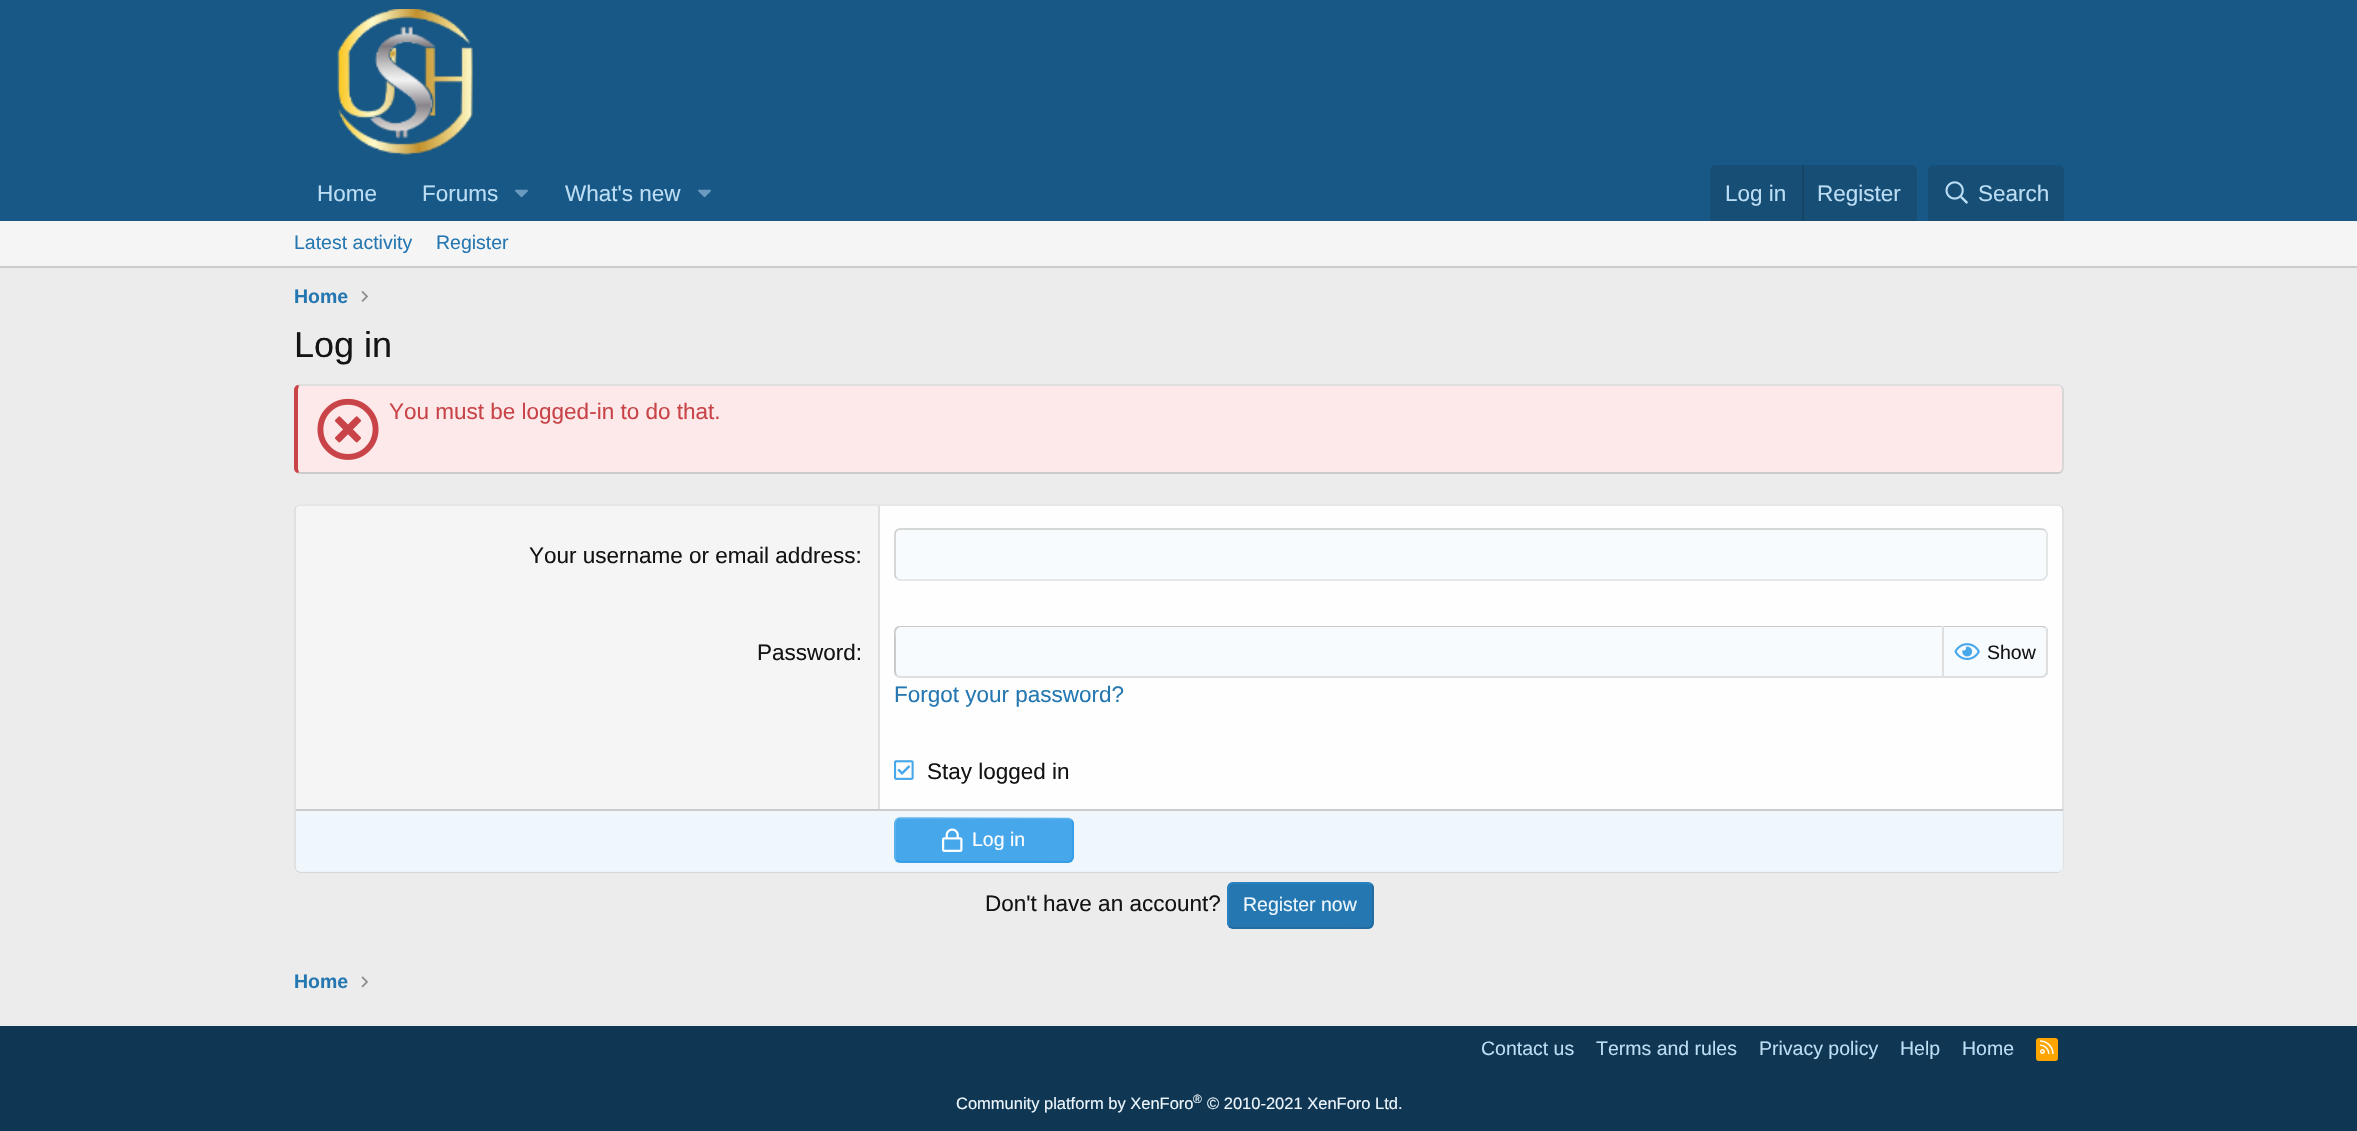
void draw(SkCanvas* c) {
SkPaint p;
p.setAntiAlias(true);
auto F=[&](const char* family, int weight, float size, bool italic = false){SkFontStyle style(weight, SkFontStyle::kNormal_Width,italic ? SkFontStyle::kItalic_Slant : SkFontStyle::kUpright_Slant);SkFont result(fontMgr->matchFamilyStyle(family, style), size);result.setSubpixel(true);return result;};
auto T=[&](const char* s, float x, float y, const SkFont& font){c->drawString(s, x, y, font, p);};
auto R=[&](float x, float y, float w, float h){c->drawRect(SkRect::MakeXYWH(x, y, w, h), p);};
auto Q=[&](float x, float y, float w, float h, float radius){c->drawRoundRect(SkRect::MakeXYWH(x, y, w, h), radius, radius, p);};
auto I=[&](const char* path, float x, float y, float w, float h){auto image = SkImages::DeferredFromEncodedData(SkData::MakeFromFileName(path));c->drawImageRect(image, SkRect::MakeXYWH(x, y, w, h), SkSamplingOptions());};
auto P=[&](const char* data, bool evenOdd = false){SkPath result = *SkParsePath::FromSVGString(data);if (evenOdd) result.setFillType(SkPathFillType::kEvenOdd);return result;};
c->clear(0xffececec);
p.setColor(0xff185886);
R(0,0,2357,221);
I("1.png",337,9,136,146);
auto f1 = F("Liberation Sans",400,22.5);
p.setColor(0xffbcdef5);
T("Home",317,201,f1);
T("Forums",422,201,f1);
I("2.png",515,189,13,9);
T("What's new",565,201,f1);
I("2.png",698,189,13,9);
p.setColor(0xff174e75);
c->drawPath(P("M1716 165h195c3.5 0 6 2.5 6 6v50h-207v-50c0-3.5 2.5-6 6-6z"),p);
p.setColor(0xffbcdef5);
T("Log in",1725,201,f1);
p.setColor(0xff174566);
R(1802,165,2,56);
p.setColor(0xffbcdef5);
T("Register",1817,201,f1);
p.setColor(0xff174e75);
c->drawPath(P("M1934 165h124c3.5 0 6 2.5 6 6v50h-136v-50c0-3.5 2.5-6 6-6z"),p);
I("3.png",1945,181,23,23);
p.setColor(0xffbcdef5);
T("Search",1978,201,f1);
p.setColor(0xfff5f5f5);
R(0,221,2357,45);
p.setColor(0xffcbcbcb);
R(0,266,2357,2);
auto f2 = F("Liberation Sans",400,19.5);
p.setColor(0xff2577b1);
T("Latest activity",294,249,f2);
T("Register",436,249,f2);
auto f3 = F("Liberation Sans",700,19.5);
T("Home",294,303,f3);
I("4.png",361,291,7,11);
auto f4 = F("Liberation Sans",400,36);
p.setColor(0xff141414);
T("Log in",294,357,f4);
p.setColor(0xfffde9e9);
c->drawPath(P("M300 386h1758c2 0 4 2 4 4v78c0 2-2 4-4 4h-1758c-1 0-2-2-2-4v-78c0-2 1-4 2-4z"),p);
p.setColor(0xffdfdfdf);
c->drawPath(P("M300 384l-3 1l3 1h1758c1 0 2 0 3 1l1-1c-1-1-2-2-4-2z"),p);
p.setColor(0xffd8d8d8);
c->drawPath(P("M2064 468v-79l-2-3l-1 1l1 3v78l-1 3l1 1c1-1 2-2 2-4z"),p);
p.setColor(0xffcbcbcb);
c->drawPath(P("M300 474h1758c2 0 3-1 4-2l-1-1c-1 1-2 1-3 1h-1758l-3 1z"),p);
p.setColor(0xffc84448);
c->drawPath(P("M300 386l-3-1c-2 1-3 3-3 5v78c0 2 1 4 3 5l3-1h-1l-1-3v-80l1-3z"),p);
I("5.png",317,398,62,62);
T("You must be logged-in to do that.",389,419,f1);
p.setColor(0xfffefefe);
Q(294,504,1770,369,6);
p.setStroke(true);
p.setStrokeWidth(1.5);
p.setColor(0xffdfdfdf);
c->drawPath(P("M296.5 506.5c1-1 2-1.5 3.5-1.5h1758c1.5 0 2.5 .5 3.5 1.5"),p);
p.setColor(0xffd8d8d8);
c->drawPath(P("M2061.5 506.5c1 1 1.5 2 1.5 3.5v357c0 1.5-.5 2.5-1.5 3.5"),p);
p.setColor(0xffcbcbcb);
c->drawPath(P("M2061.5 870.5c-1 1-2 1.5-3.5 1.5h-1758c-1.5 0-2.5-.5-3.5-1.5"),p);
p.setColor(0xffd8d8d8);
c->drawPath(P("M296.5 870.5c-1-1-1.5-2-1.5-3.5v-357c0-1.5 .5-2.5 1.5-3.5"),p);
p.setStroke(false);
p.setColor(0xfff5f5f5);
c->drawPath(P("M301 506h578v97h-583v-92c0-3 2-5 5-5z"),p);
p.setColor(0xffdfdfdf);
R(878,506,2,303);
p.setColor(0xff141414);
T("Your username or email address:",529,563,f1);
p.setColor(0xfff7fbfe);
Q(894,528,1154,53,6);
p.setStroke(true);
p.setColor(0xffdfdfdf);
c->drawPath(P("M2045 530.5c1 1 2 2 2 3.5v40.5c0 1.5-1 2.5-2 3.5c-1 1-2 2-3.5 2h-1141.5c-1.5 0-2.5-1-3.5-2"),p);
p.setColor(0xffcbcbcb);
c->drawPath(P("M896.5 578c-1-1-1.5-2-1.5-3.5v-40.5c0-1.5 .5-2.5 1.5-3.5c1-1 2-1.5 3.5-1.5h1141.5c1.5 0 2.5 .5 3.5 1.5"),p);
p.setStroke(false);
p.setColor(0xfff5f5f5);
R(296,603,582,206);
p.setColor(0xff141414);
T("Password:",757,660,f1);
p.setColor(0xfff7fbfe);
c->drawPath(P("M900 626h1043v52h-1043c-3.5 0-6-2.5-6-6v-40c0-3.5 2.5-6 6-6z"),p);
p.setColor(0xffcbcbcb);
c->drawPath(P("M900 626h1042v1h-1042c-1 0-2 1-3 2l-1-2c1-1 3-1 4-1z"),p);
p.setColor(0xffdfdfdf);
c->drawPath(P("M900 678h1042v-2h-1042l-3-1l-1 1c1 1 2 2 4 2z"),p);
p.setColor(0xffcbcbcb);
c->drawPath(P("M897 675l-1 1c-1-1-2-2-2-4v-40c0-2 1-4 2-5l1 2c-2 2-1 7-1 10v33z"),p);
p.setColor(0xfff7fbfe);
c->drawPath(P("M1943 626h99c3.5 0 6 2.5 6 6v40c0 3.5-2.5 6-6 6h-99z"),p);
p.setColor(0xffcbcbcb);
c->drawPath(P("M1944 627h98l3 1l1-1c-1-1-3-1-4-1h-99z"),p);
p.setColor(0xffdfdfdf);
c->drawPath(P("M2046 627l2 2v45l-2 2l-2-1l2-3v-33c0-3 1-8-1-11z"),p);
c->drawPath(P("M1942 678h101l3-2l-2-1l-2 1h-98z"),p);
c->drawPath(P("M1944 627l-2-1v52l2-2z"),p);
I("6.png",1954,643,26,17);
p.setColor(0xff141414);
T("Show",1987,659,f2);
p.setColor(0xff2577b1);
T("Forgot your password?",894,702,f1);
I("7.png",894,760,20,20);
p.setColor(0xff141414);
T("Stay logged in",927,779,f1);
p.setColor(0xe6edf6fd);
c->drawPath(P("M296 809h1767v58c0 3-2 5-5 5h-1757c-3 0-5-2-5-5z"),p);
p.setColor(0xffcbcbcb);
R(296,809,1767,2);
p.setColor(0xff47a7eb);
Q(894,818,180,45,6);
p.setStroke(true);
p.setColor(0xff309ce8);
c->drawPath(P("M1071.5 820c2.5 2 1.5 6 1.5 9v22c0 4 1 10.5-5 11l-168.5-.5l-3-1.5"),p);
p.setColor(0xff5eb2ed);
c->drawPath(P("M896.5 860c-2.5-2-1.5-6-1.5-9v-22c0-4-1-10.5 5-11l168.5 .5l3 1.5"),p);
I("8.png",942,828,21,24);
p.setStroke(false);
p.setColor(0xffffffff);
T("Log in",972,846,f2);
p.setColor(0xff141414);
T("Don't have an account?",985,911,f1);
p.setColor(0xff2577b1);
Q(1227,882,147,47,6);
p.setStroke(true);
p.setColor(0xff21699c);
c->drawPath(P("M1371.5 884.5c2.5 2 1.5 6.5 1.5 9.5v11c0 28 3.5 23-27.5 23h-112.5l-3.5-2"),p);
p.setColor(0xff2985c6);
c->drawPath(P("M1229.5 926c-2.5-2-1.5-6.5-1.5-9v-12c0-27.5-3.5-22 27.5-22h112.5l3.5 1.5"),p);
p.setStroke(false);
p.setColor(0xffedf6fd);
T("Register now",1243,911,f2);
p.setColor(0xff2577b1);
T("Home",294,988,f3);
I("9.png",361,976,7,12);
p.setColor(0xff0f3652);
R(0,1026,2357,105);
p.setColor(0xffbcdef5);
T("Contact us",1481,1055,f2);
T("Terms and rules",1596,1055,f2);
T("Privacy policy",1759,1055,f2);
T("Help",1900,1055,f2);
T("Home",1962,1055,f2);
p.setColor(0xffffa500);
Q(2036,1038,22,23,3);
I("10.png",2040,1040,14,14);
auto f5 = F("Liberation Sans",400,16.5);
p.setColor(0xffedf6fd);
T("Community platform by XenForo",956,1109,f5);
auto f6 = F("Liberation Sans",400,12);
T("®",1193,1103,f6);
T("© 2010-2021 XenForo Ltd.",1207,1109,f5);
}
